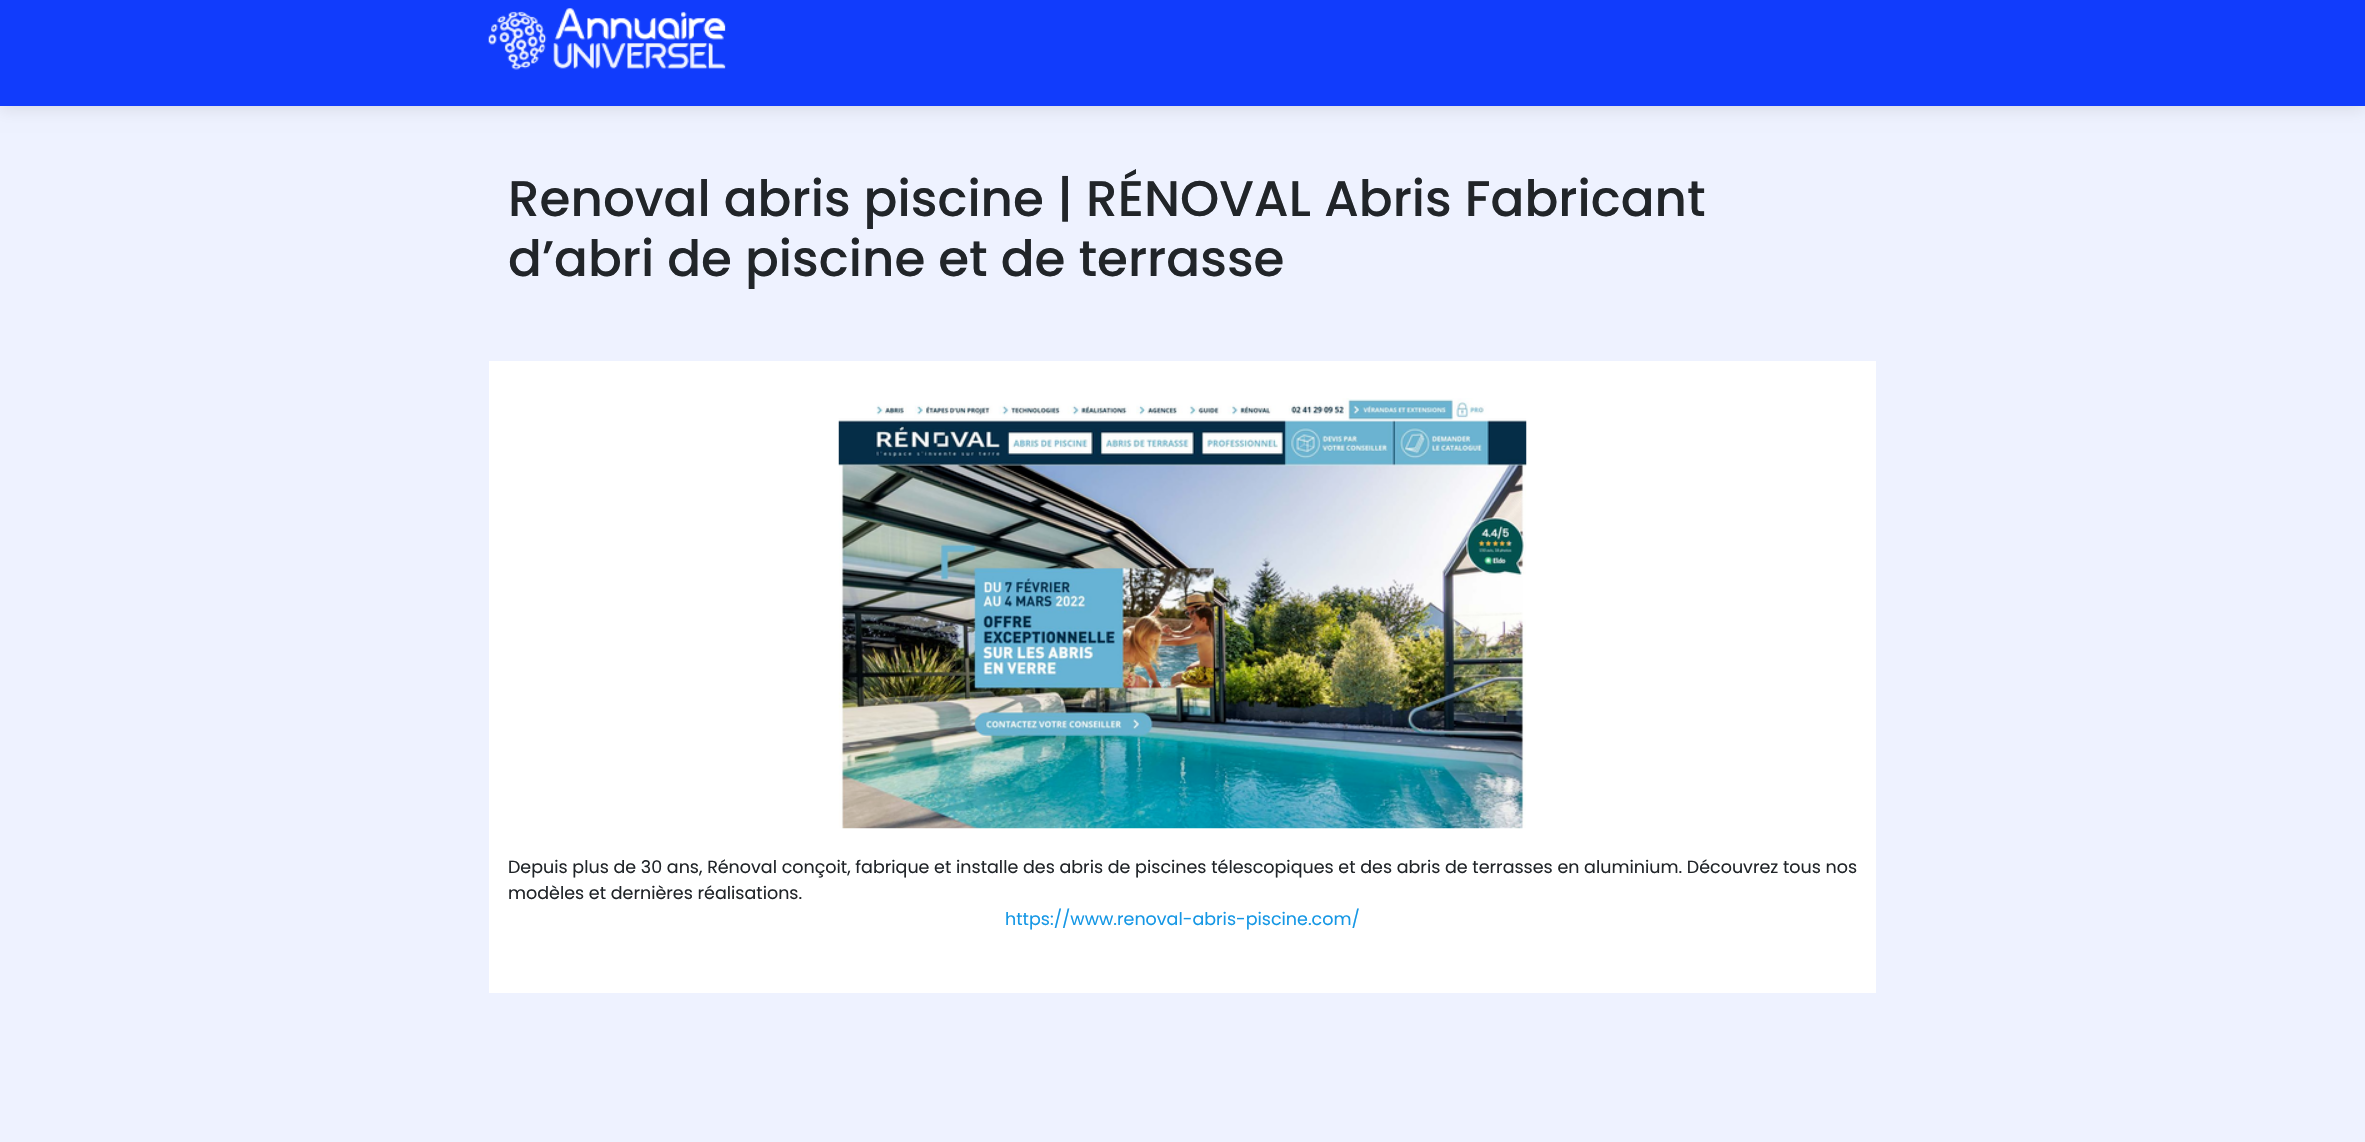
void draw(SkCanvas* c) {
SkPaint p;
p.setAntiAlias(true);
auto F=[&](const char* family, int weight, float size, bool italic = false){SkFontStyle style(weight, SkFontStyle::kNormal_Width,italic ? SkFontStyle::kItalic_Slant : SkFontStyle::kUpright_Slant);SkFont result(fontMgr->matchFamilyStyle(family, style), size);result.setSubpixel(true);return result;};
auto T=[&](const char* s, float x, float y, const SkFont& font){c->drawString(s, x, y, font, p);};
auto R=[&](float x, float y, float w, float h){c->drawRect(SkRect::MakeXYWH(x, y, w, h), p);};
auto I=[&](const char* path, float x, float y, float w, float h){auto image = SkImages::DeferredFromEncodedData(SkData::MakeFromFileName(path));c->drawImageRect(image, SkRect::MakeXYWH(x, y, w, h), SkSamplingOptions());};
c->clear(0xffeef2ff);
p.setColor(0x1a000000);
p.setMaskFilter(SkMaskFilter::MakeBlur(kNormal_SkBlurStyle, 8));
c->drawRect(SkRect::MakeXYWH(0,-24,2365,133),p);
p.setMaskFilter(nullptr);
p.setColor(0xff113cfc);
R(0,0,2365,106);
I("1.png",488,8,238,62);
auto f1 = F("Poppins",500,50);
p.setColor(0xff212529);
T("Renoval abris piscine | RÉNOVAL Abris Fabricant",508,216,f1);
T("d’abri de piscine et de terrasse",508,276,f1);
p.setColor(0xffffffff);
R(489,361,1387,632);
I("2.png",838,398,689,431);
auto f2 = F("Poppins",400,17.5);
p.setColor(0xff212529);
T("Depuis plus de 30 ans, Rénoval conçoit, fabrique et installe des abris de piscines télescopiques et des abris de terrasses en aluminium. Découvrez tous nos",508,873,f2);
T("modèles et dernières réalisations.",508,899,f2);
p.setColor(0xff1597e5);
T("https://www.renoval-abris-piscine.com/",1005,925,f2);
}
